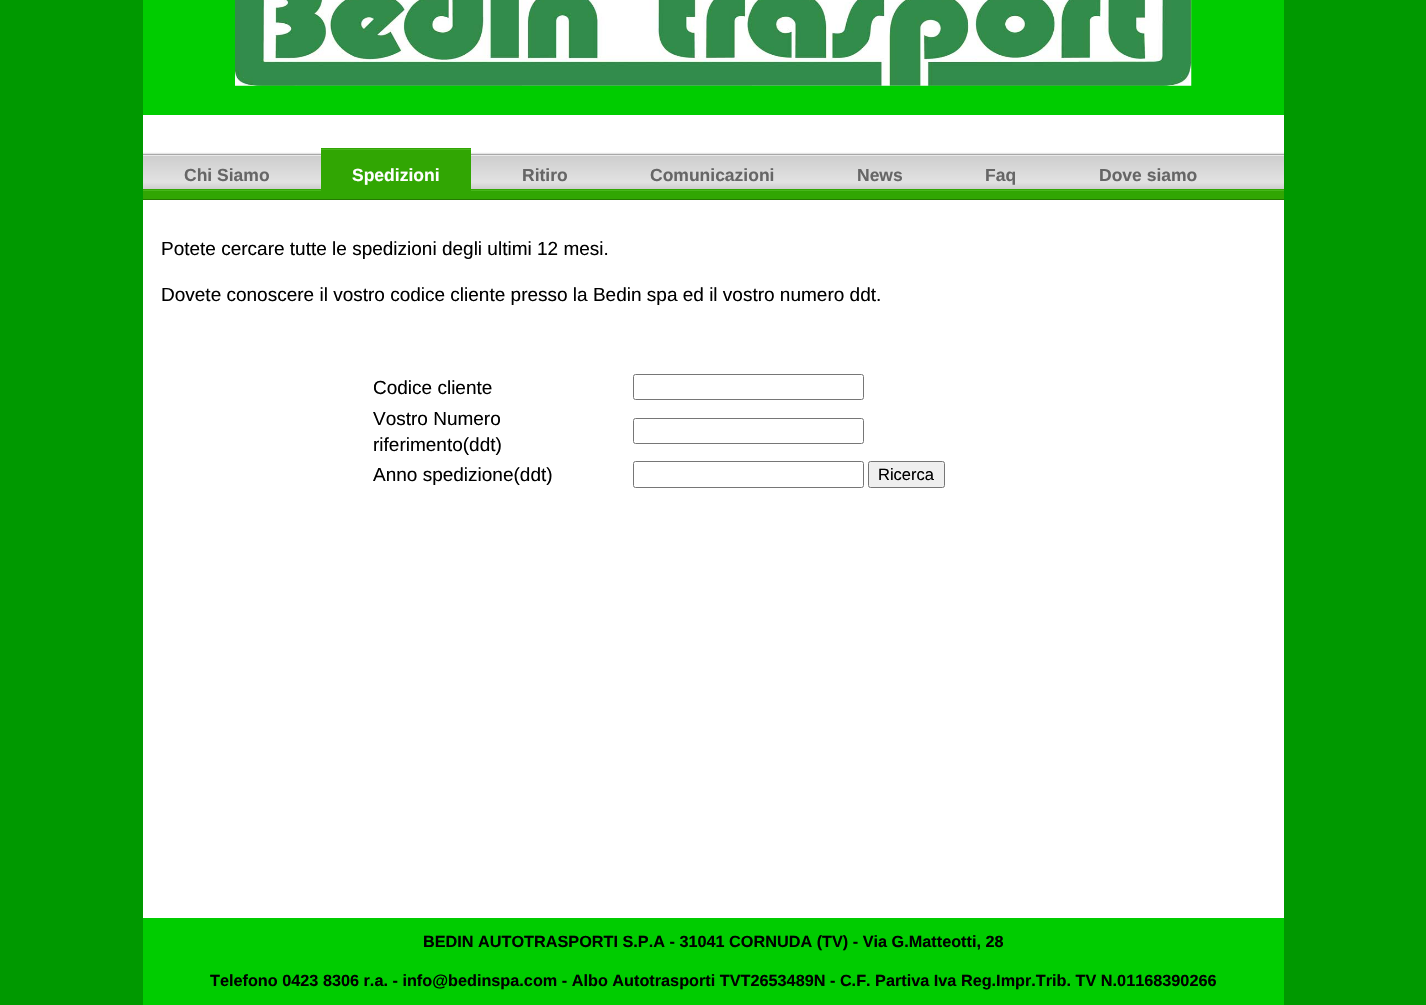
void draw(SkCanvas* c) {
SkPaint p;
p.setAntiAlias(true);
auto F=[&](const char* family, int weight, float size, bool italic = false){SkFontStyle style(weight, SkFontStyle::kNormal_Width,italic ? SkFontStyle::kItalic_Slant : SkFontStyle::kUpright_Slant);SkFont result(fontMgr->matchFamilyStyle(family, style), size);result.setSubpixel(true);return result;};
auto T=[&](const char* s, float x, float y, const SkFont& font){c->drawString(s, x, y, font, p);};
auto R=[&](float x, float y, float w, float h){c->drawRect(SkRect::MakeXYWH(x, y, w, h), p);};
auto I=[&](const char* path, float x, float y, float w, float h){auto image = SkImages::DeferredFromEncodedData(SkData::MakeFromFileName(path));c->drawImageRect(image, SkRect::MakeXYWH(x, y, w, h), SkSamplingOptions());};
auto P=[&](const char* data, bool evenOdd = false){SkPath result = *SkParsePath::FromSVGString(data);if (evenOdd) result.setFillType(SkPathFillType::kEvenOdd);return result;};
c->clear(0xff009900);
p.setColor(0xffffffff);
R(143,115,1141,803);
p.setColor(0xff00cc00);
R(143,0,1141,115);
I("1.png",235,0,957,86);
p.setColor(0x1a000000);
p.setMaskFilter(SkMaskFilter::MakeBlur(kNormal_SkBlurStyle, .5));
c->drawRect(SkRect::MakeXYWH(143,153,1141,35),p);
p.setMaskFilter(nullptr);
p.setColor(0xff247902);
c->drawPath(P("M143 189v11h1141v-35v24z"),p);
p.setColor(0xff31a603);
c->drawPath(P("M143 189v10h1141v-35v25z"),p);
p.setColor(0xff47b61c);
c->drawPath(P("M143 189v2h1141v-35v33z"),p);
p.setColor(0xff31a603);
c->drawPath(P("M143 189v1h1141v-35v34z"),p);
{
const SkColor colors[] = {0xffcdcdcd,0xffe2e2e2,0xffcdcdcd};
const float stops[] = {0,.8,1};
const SkPoint ends[] = {{713,155}, {713,189}};
p.setShader(SkGradientShader::MakeLinear(ends, colors, stops, 3, SkTileMode::kClamp));
p.setAlpha(255);
}
R(143,156,1141,33);
p.setShader(nullptr);
p.setColor(0xffe9e9e9);
R(143,155,1141,1);
p.setColor(0xffa8a8a8);
R(143,154,1141,1);
auto f1 = F("Liberation Sans",700,17.5);
p.setColor(0xff666666);
T("Chi Siamo",184,181,f1);
p.setColor(0xff31a603);
c->drawPath(P("M321 148v37v-30h150v-7z"),p);
p.setColor(0xff47b61c);
c->drawPath(P("M321 149v37v-31h150v-6z"),p);
p.setColor(0xff31a603);
c->drawPath(P("M321 150v38v-33h150v-5z"),p);
R(321,155,150,36);
p.setColor(0xffffffff);
T("Spedizioni",352,181,f1);
p.setColor(0xff666666);
T("Ritiro",522,181,f1);
T("Comunicazioni",650,181,f1);
T("News",857,181,f1);
T("Faq",985,181,f1);
T("Dove siamo",1099,181,f1);
auto f2 = F("Liberation Sans",400,19);
p.setColor(0xff000000);
T("Potete cercare tutte le spedizioni degli ultimi 12 mesi.",161,255,f2);
T("Dovete conoscere il vostro codice cliente presso la Bedin spa ed il vostro numero ddt.",161,301,f2);
T("Codice cliente",373,394,f2);
p.setStroke(true);
p.setStrokeWidth(1);
p.setColor(0xff767676);
c->drawRoundRect(SkRect::MakeXYWH(633.5,374.5,230,25),2,2,p);
p.setStroke(false);
p.setColor(0xff000000);
T("Vostro Numero",373,425,f2);
T("riferimento(ddt)",373,451,f2);
p.setStroke(true);
p.setColor(0xff767676);
c->drawRoundRect(SkRect::MakeXYWH(633.5,418.5,230,25),2,2,p);
p.setStroke(false);
p.setColor(0xff000000);
T("Anno spedizione(ddt)",373,481,f2);
p.setStroke(true);
p.setColor(0xff767676);
c->drawRoundRect(SkRect::MakeXYWH(633.5,461.5,230,26),2,2,p);
p.setStroke(false);
p.setColor(0xffefefef);
c->drawRoundRect(SkRect::MakeXYWH(868.5,461.5,76,26),2,2,p);
p.setStroke(true);
p.setColor(0xff767676);
c->drawRoundRect(SkRect::MakeXYWH(868.5,461.5,76,26),2,2,p);
auto f3 = F("Liberation Sans",400,16.5);
p.setStroke(false);
p.setColor(0xff000000);
T("Ricerca",878,480,f3);
p.setColor(0xff00cc00);
R(143,918,1141,87);
auto f4 = F("Liberation Sans",700,16.25);
p.setColor(0xff000000);
T("BEDIN AUTOTRASPORTI S.P.A - 31041 CORNUDA (TV) - Via G.Matteotti, 28",423,947,f4);
T("Telefono 0423 8306 r.a. - info@bedinspa.com - Albo Autotrasporti TVT2653489N - C.F. Partiva Iva Reg.Impr.Trib. TV N.01168390266",210,986,f4);
}
